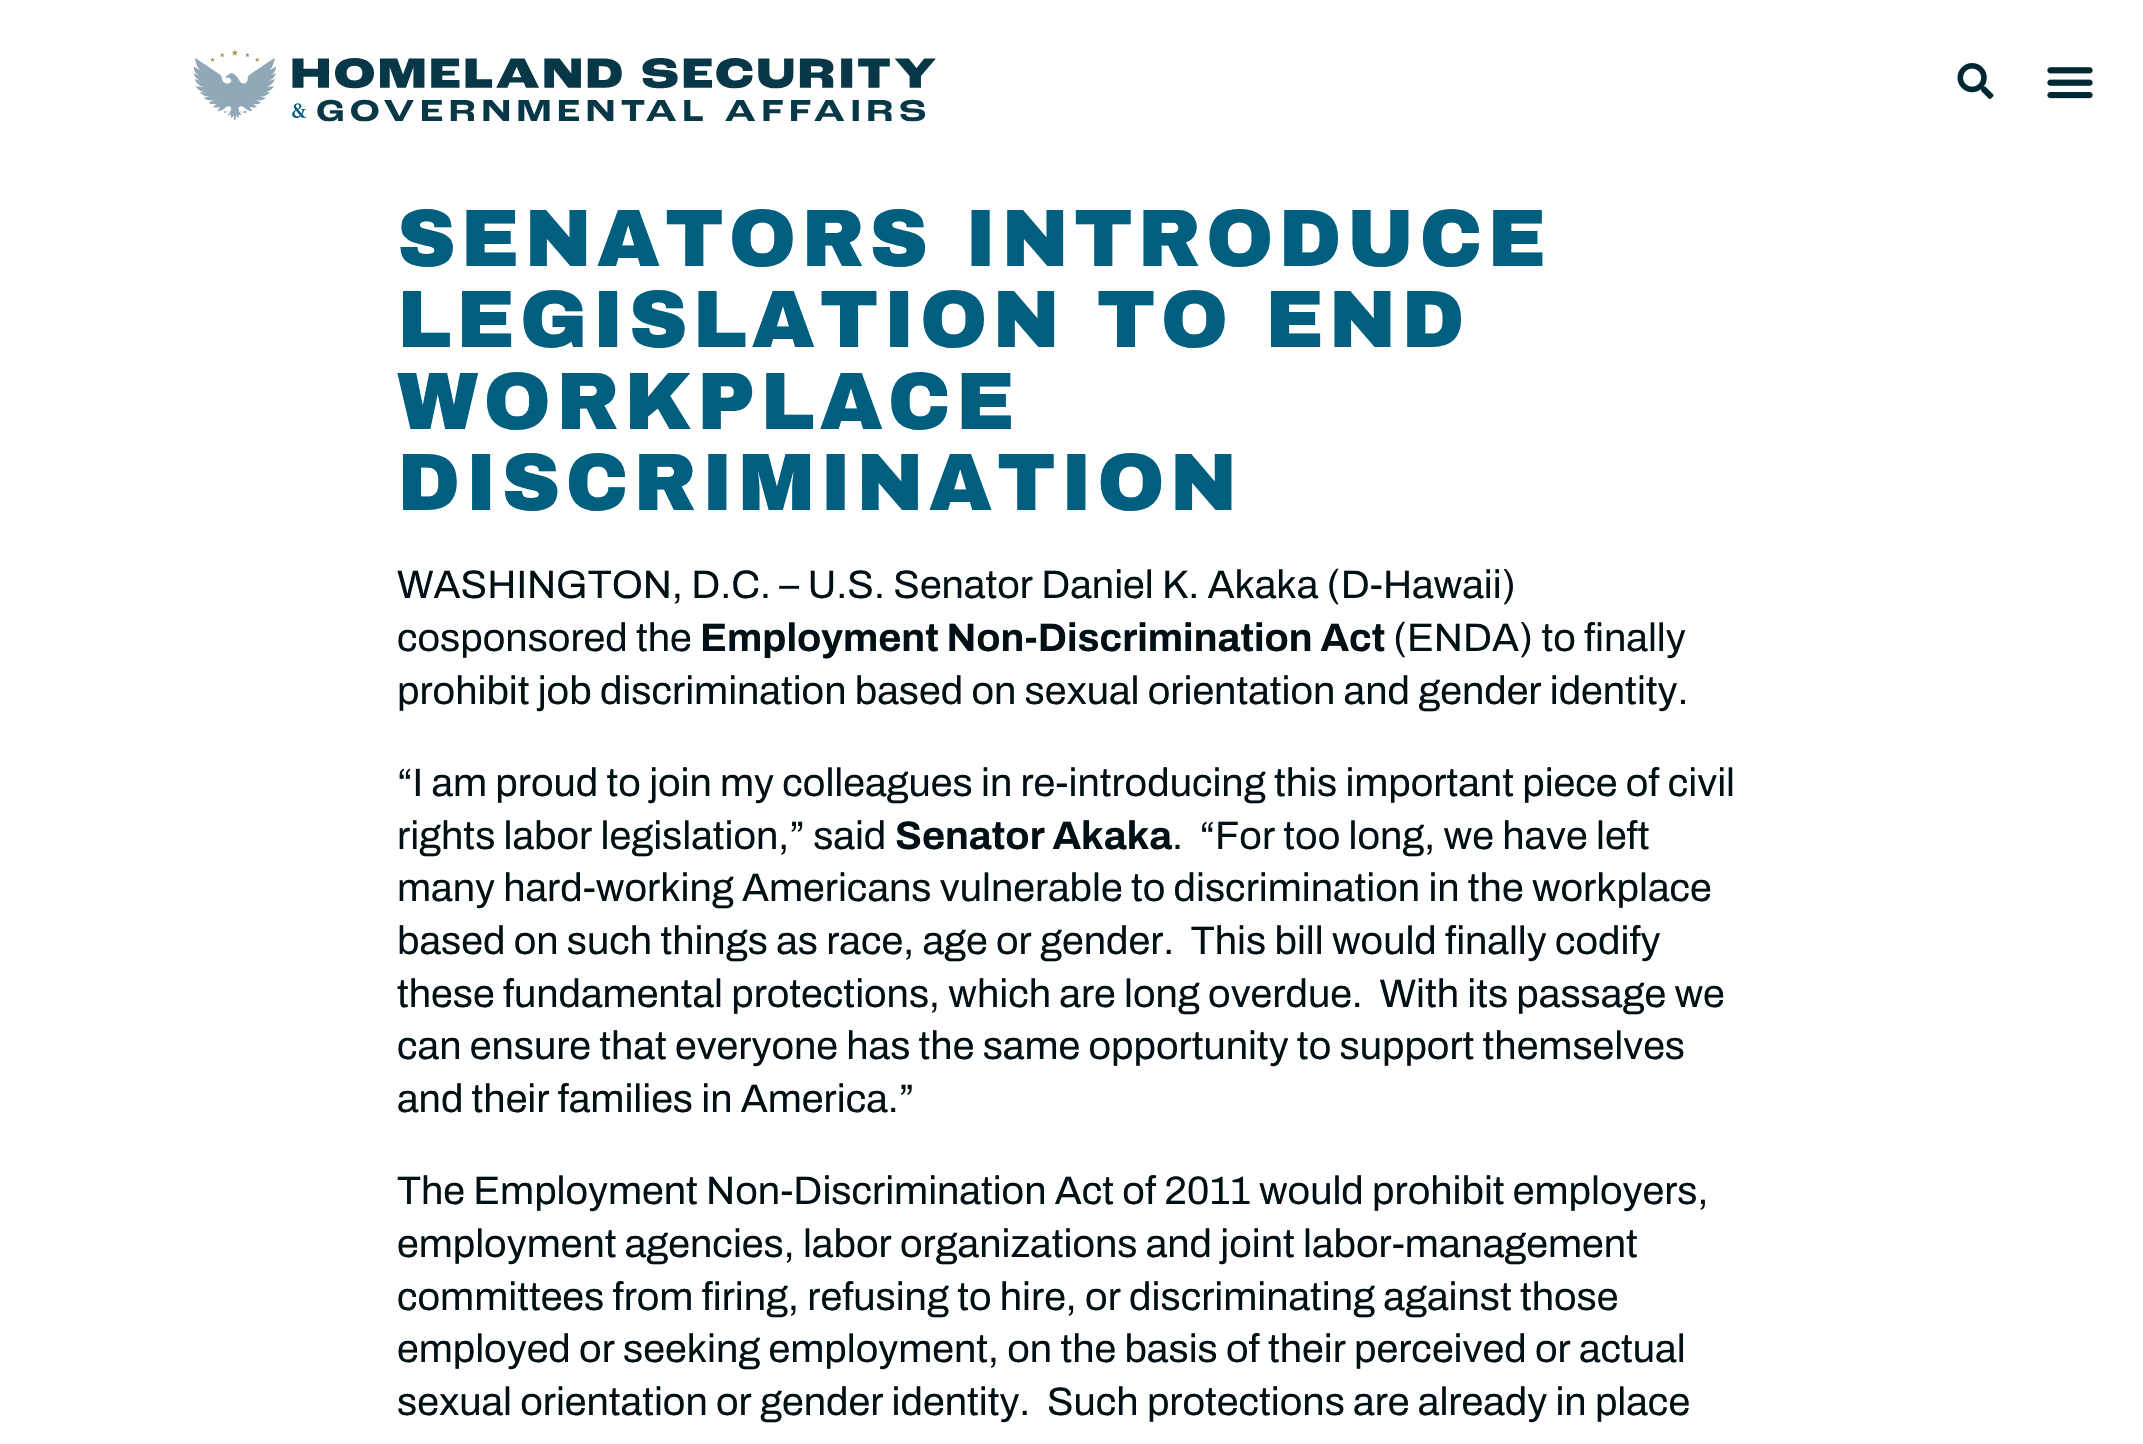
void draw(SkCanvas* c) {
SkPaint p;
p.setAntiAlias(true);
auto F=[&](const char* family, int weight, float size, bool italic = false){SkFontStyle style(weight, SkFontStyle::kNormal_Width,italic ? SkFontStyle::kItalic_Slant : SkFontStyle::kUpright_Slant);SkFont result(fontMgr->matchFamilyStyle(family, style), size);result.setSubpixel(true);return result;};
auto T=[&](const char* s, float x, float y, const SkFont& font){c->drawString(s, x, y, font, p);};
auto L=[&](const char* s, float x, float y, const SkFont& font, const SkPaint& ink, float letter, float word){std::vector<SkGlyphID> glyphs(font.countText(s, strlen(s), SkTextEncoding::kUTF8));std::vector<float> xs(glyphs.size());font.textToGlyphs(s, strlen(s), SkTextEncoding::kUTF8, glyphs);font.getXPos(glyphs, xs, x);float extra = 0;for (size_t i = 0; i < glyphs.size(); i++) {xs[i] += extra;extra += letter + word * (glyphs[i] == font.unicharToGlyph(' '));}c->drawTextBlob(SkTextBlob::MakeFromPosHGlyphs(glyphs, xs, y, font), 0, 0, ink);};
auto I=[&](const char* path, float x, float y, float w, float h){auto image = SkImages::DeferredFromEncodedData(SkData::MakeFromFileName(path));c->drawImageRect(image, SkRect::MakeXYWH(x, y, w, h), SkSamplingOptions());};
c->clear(0xffffffff);
I("1.png",194,50,742,72);
I("2.png",1957,63,37,36);
I("3.png",2047,67,46,32);
auto f1 = F("Archivo Black",900,81.5);
p.setColor(0xff005f7f);
L("SENATORS INTRODUCE",397,266,f1,p,4.75,0);
L("LEGISLATION TO END",397,347,f1,p,4.75,0);
L("WORKPLACE",397,429,f1,p,4.75,0);
L("DISCRIMINATION",397,510,f1,p,4.75,0);
auto f2 = F("Archivo",400,39.6);
p.setColor(0xff001014);
T("WASHINGTON, D.C. – U.S. Senator Daniel K. Akaka (D-Hawaii)",397,598,f2);
T("cosponsored the",397,651,f2);
auto f3 = F("Archivo",700,39.6);
T("Employment Non-Discrimination Act",700,651,f3);
T("(ENDA) to finally",1393,651,f2);
T("prohibit job discrimination based on sexual orientation and gender identity.",397,704,f2);
T("“I am proud to join my colleagues in re-introducing this important piece of civil",397,796,f2);
T("rights labor legislation,” said",397,849,f2);
T("Senator Akaka",895,849,f3);
T(".  “For too long, we have left",1172,849,f2);
T("many hard-working Americans vulnerable to discrimination in the workplace",397,901,f2);
T("based on such things as race, age or gender.  This bill would finally codify",397,954,f2);
T("these fundamental protections, which are long overdue.  With its passage we",397,1007,f2);
T("can ensure that everyone has the same opportunity to support themselves",397,1059,f2);
T("and their families in America.”",397,1112,f2);
T("The Employment Non-Discrimination Act of 2011 would prohibit employers,",397,1204,f2);
T("employment agencies, labor organizations and joint labor-management",397,1257,f2);
T("committees from firing, refusing to hire, or discriminating against those",397,1310,f2);
T("employed or seeking employment, on the basis of their perceived or actual",397,1362,f2);
T("sexual orientation or gender identity.  Such protections are already in place",397,1415,f2);
}
